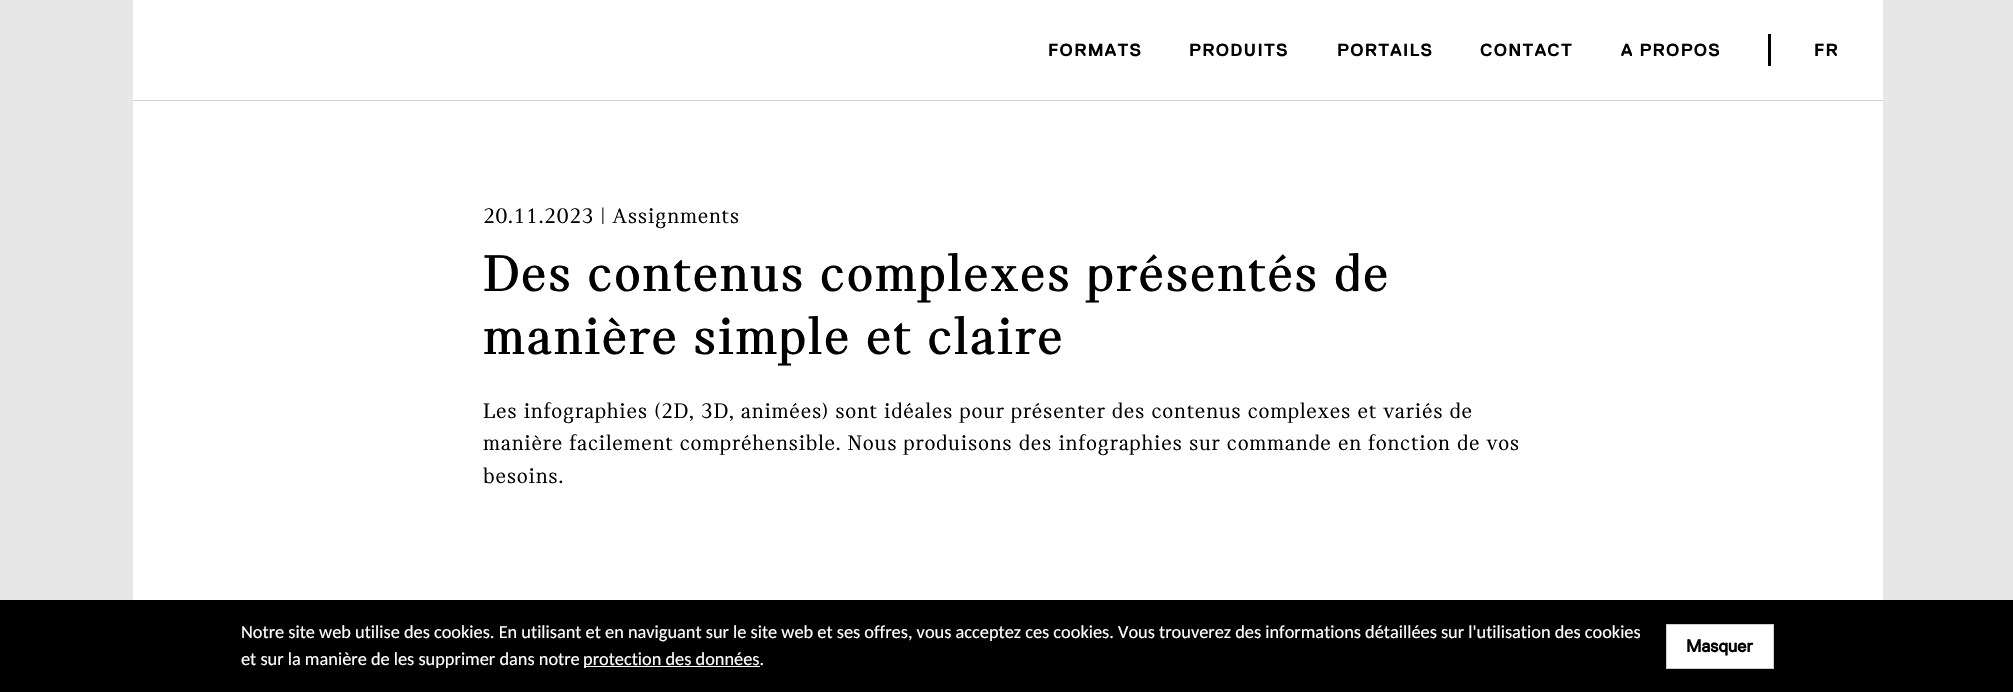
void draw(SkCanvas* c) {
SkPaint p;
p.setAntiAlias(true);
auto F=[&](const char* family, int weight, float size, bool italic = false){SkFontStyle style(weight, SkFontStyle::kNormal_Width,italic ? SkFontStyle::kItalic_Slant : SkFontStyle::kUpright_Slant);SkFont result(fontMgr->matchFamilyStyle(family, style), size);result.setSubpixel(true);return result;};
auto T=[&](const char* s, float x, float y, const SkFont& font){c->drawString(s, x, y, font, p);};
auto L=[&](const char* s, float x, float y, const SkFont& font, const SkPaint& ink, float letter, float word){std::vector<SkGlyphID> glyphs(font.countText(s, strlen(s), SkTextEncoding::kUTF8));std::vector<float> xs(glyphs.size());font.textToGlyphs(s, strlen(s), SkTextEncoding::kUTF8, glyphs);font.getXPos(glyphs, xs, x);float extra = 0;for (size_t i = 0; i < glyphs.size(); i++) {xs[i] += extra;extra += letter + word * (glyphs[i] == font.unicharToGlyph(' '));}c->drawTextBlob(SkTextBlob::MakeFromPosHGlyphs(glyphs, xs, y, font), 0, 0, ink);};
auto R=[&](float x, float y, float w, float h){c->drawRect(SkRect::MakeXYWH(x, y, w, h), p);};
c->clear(0xffe7e7e7);
p.setColor(0xffffffff);
R(133,0,1750,600);
p.setColor(0xffd0d0d0);
R(133,100,1750,1);
auto f1 = F("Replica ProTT",700,17.5);
p.setColor(0xff000000);
L("FORMATS",1048,56,f1,p,1.25,0);
L("PRODUITS",1189,56,f1,p,1.25,0);
L("PORTAILS",1337,56,f1,p,1.25,0);
L("CONTACT",1480,56,f1,p,1.25,0);
L("A PROPOS",1621,56,f1,p,1.25,0);
R(1768,34,3,32);
L("FR",1814,56,f1,p,1.25,0);
auto f2 = F("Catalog",400,22.5);
L("20.11.2023 | Assignments",483,223,f2,p,.75,0);
auto f3 = F("Catalog",700,55);
L("Des contenus complexes présentés de",483,291,f3,p,1.25,0);
L("manière simple et claire",483,354,f3,p,1.25,0);
L("Les infographies (2D, 3D, animées) sont idéales pour présenter des contenus complexes et variés de",483,418,f2,p,.75,0);
L("manière facilement compréhensible. Nous produisons des infographies sur commande en fonction de vos",483,450,f2,p,.75,0);
L("besoins.",483,483,f2,p,.75,0);
R(0,600,2013,92);
auto f4 = F("Carlito",400,18.33);
p.setColor(0xffffffff);
T("Notre site web utilise des cookies. En utilisant et en naviguant sur le site web et ses offres, vous acceptez ces cookies. Vous trouverez des informations détaillées sur l'utilisation des cookies",241,638,f4);
T("et sur la manière de les supprimer dans notre",241,665,f4);
R(584,666,176,1);
T("protection des données.",583,665,f4);
c->drawRect(SkRect::MakeXYWH(1666.5,624.5,107,44),p);
p.setStroke(true);
p.setStrokeWidth(1);
p.setColor(0xffcdced9);
c->drawRect(SkRect::MakeXYWH(1666.5,624.5,107,44),p);
auto f5 = F("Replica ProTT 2",700,17.5);
p.setStroke(false);
p.setColor(0xff000000);
T("Masquer",1686,652,f5);
}
